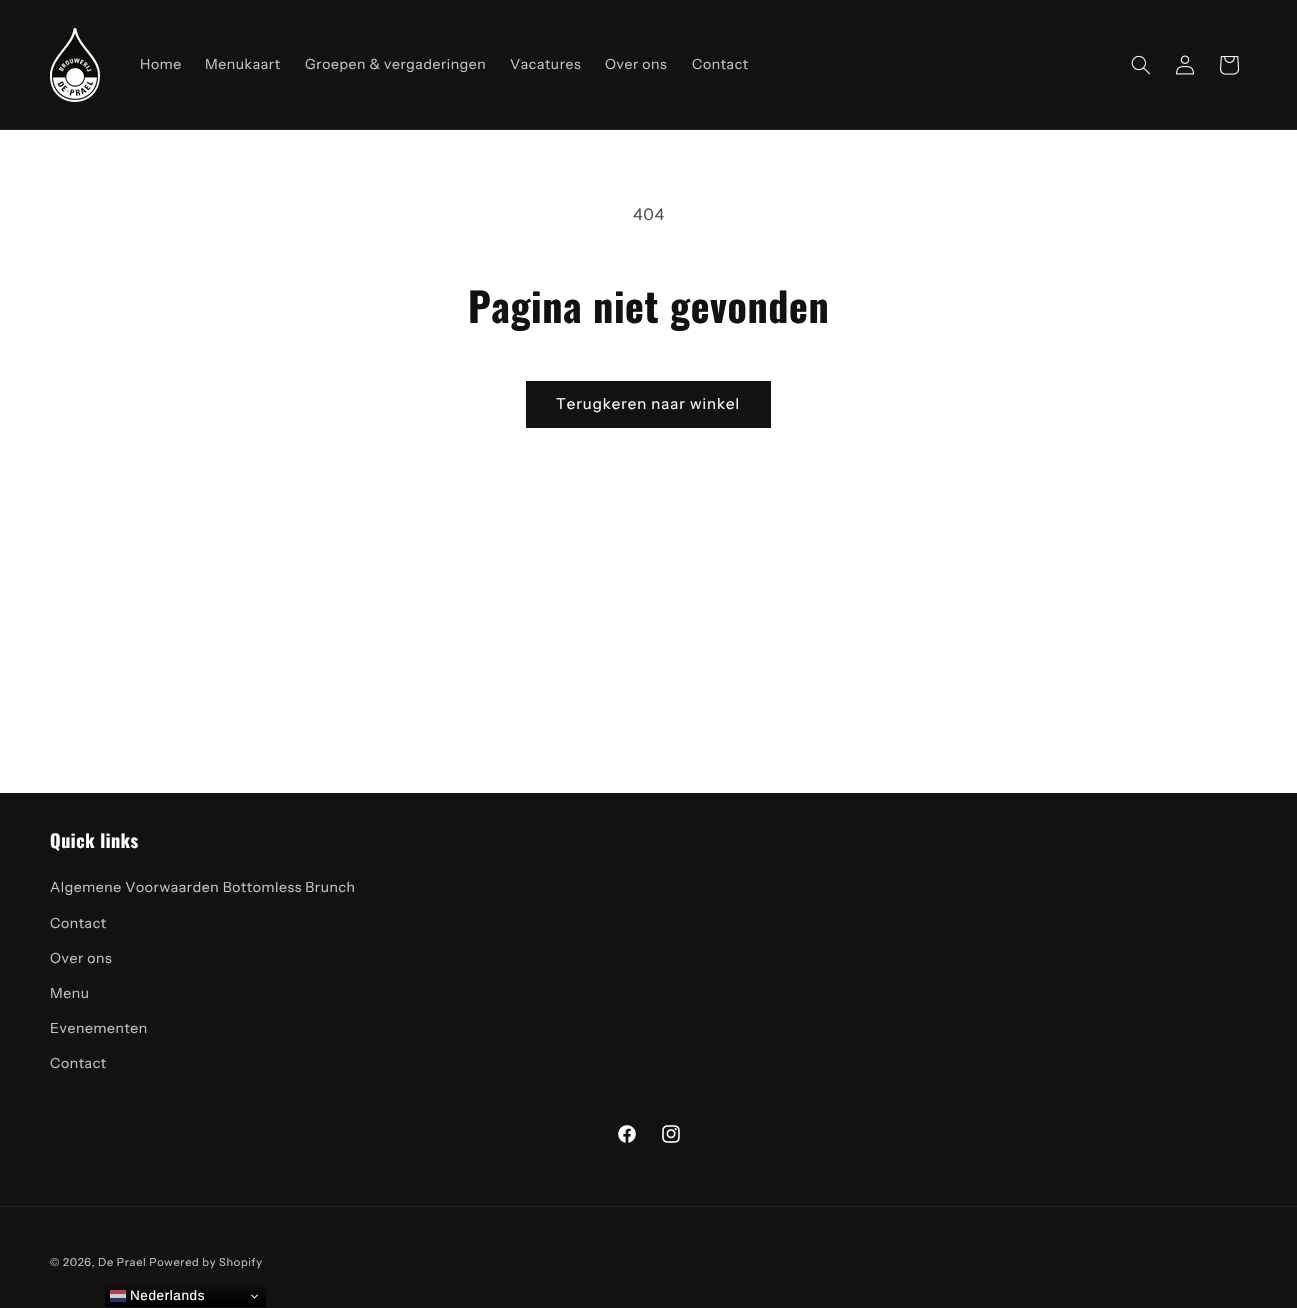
void draw(SkCanvas* c) {
SkPaint p;
p.setAntiAlias(true);
auto F=[&](const char* family, int weight, float size, bool italic = false){SkFontStyle style(weight, SkFontStyle::kNormal_Width,italic ? SkFontStyle::kItalic_Slant : SkFontStyle::kUpright_Slant);SkFont result(fontMgr->matchFamilyStyle(family, style), size);result.setSubpixel(true);return result;};
auto L=[&](const char* s, float x, float y, const SkFont& font, const SkPaint& ink, float letter, float word){std::vector<SkGlyphID> glyphs(font.countText(s, strlen(s), SkTextEncoding::kUTF8));std::vector<float> xs(glyphs.size());font.textToGlyphs(s, strlen(s), SkTextEncoding::kUTF8, glyphs);font.getXPos(glyphs, xs, x);float extra = 0;for (size_t i = 0; i < glyphs.size(); i++) {xs[i] += extra;extra += letter + word * (glyphs[i] == font.unicharToGlyph(' '));}c->drawTextBlob(SkTextBlob::MakeFromPosHGlyphs(glyphs, xs, y, font), 0, 0, ink);};
auto R=[&](float x, float y, float w, float h){c->drawRect(SkRect::MakeXYWH(x, y, w, h), p);};
auto I=[&](const char* path, float x, float y, float w, float h){auto image = SkImages::DeferredFromEncodedData(SkData::MakeFromFileName(path));c->drawImageRect(image, SkRect::MakeXYWH(x, y, w, h), SkSamplingOptions());};
c->clear(0xffffffff);
p.setColor(0xff121212);
R(0,0,1297,129);
p.setColor(0xff252525);
R(0,129,1297,1);
I("1.png",50,28,50,74);
auto f1 = F("Instrument Sans",400,14);
p.setColor(0xffc4c4c4);
L("Home",140,69,f1,p,.6,0);
L("Menukaart",205,69,f1,p,.6,0);
L("Groepen & vergaderingen",305,69,f1,p,.6,0);
L("Vacatures",510,69,f1,p,.6,0);
L("Over ons",605,69,f1,p,.6,0);
L("Contact",692,69,f1,p,.6,0);
I("2.png",1131,55,19,20);
I("3.png",1176,55,18,20);
I("4.png",1220,56,20,19);
auto f2 = F("Instrument Sans",400,16);
p.setColor(0xff4d4d4d);
L("404",633,220,f2,p,.6,0);
auto f3 = F("Oswald",700,40);
p.setColor(0xff121212);
L("Pagina niet gevonden",468,323,f3,p,.6,0);
R(526,381,245,47);
auto f4 = F("Instrument Sans",400,15);
p.setColor(0xffffffff);
L("Terugkeren naar winkel",556,409,f4,p,1,0);
p.setColor(0xff121212);
R(0,793,1297,515);
auto f5 = F("Oswald",700,18);
p.setColor(0xffffffff);
L("Quick links",50,848,f5,p,.6,0);
p.setColor(0xffc4c4c4);
L("Algemene Voorwaarden Bottomless Brunch",50,892,f1,p,.6,0);
L("Contact",50,928,f1,p,.6,0);
L("Over ons",50,963,f1,p,.6,0);
L("Menu",50,998,f1,p,.6,0);
L("Evenementen",50,1033,f1,p,.6,0);
L("Contact",50,1068,f1,p,.6,0);
{
const SkColor colors[] = {0xff121212,0xff000000};
const float stops[] = {0,.7};
const SkPoint ends[] = {{186,1284}, {186,1308}};
p.setShader(SkGradientShader::MakeLinear(ends, colors, stops, 2, SkTileMode::kClamp));
p.setAlpha(255);
}
R(105,1286,161,21);
{
const SkColor colors[] = {0xffd0d0d0,0xffcccccc};
const float stops[] = {0,.7};
const SkPoint ends[] = {{186,1284}, {186,1308}};
p.setShader(SkGradientShader::MakeLinear(ends, colors, stops, 2, SkTileMode::kClamp));
p.setAlpha(255);
}
R(110,1294,16,4);
p.setShader(nullptr);
p.setColor(0xffb44049);
R(110,1290,16,4);
auto f6 = F("Liberation Sans",400,13.5);
p.setColor(0xffffffff);
L("Nederlands",130,1300,f6,p,.6,0);
I("5.png",251,1294,7,5);
p.setColor(0xff1b386f);
R(110,1298,16,4);
I("6.png",618,1125,18,18);
I("7.png",662,1125,18,18);
p.setColor(0xff252525);
R(0,1206,1297,1);
auto f7 = F("Instrument Sans",400,11);
p.setColor(0xffc4c4c4);
L("© 2026, De Prael Powered by Shopify",50,1266,f7,p,.7,0);
}
